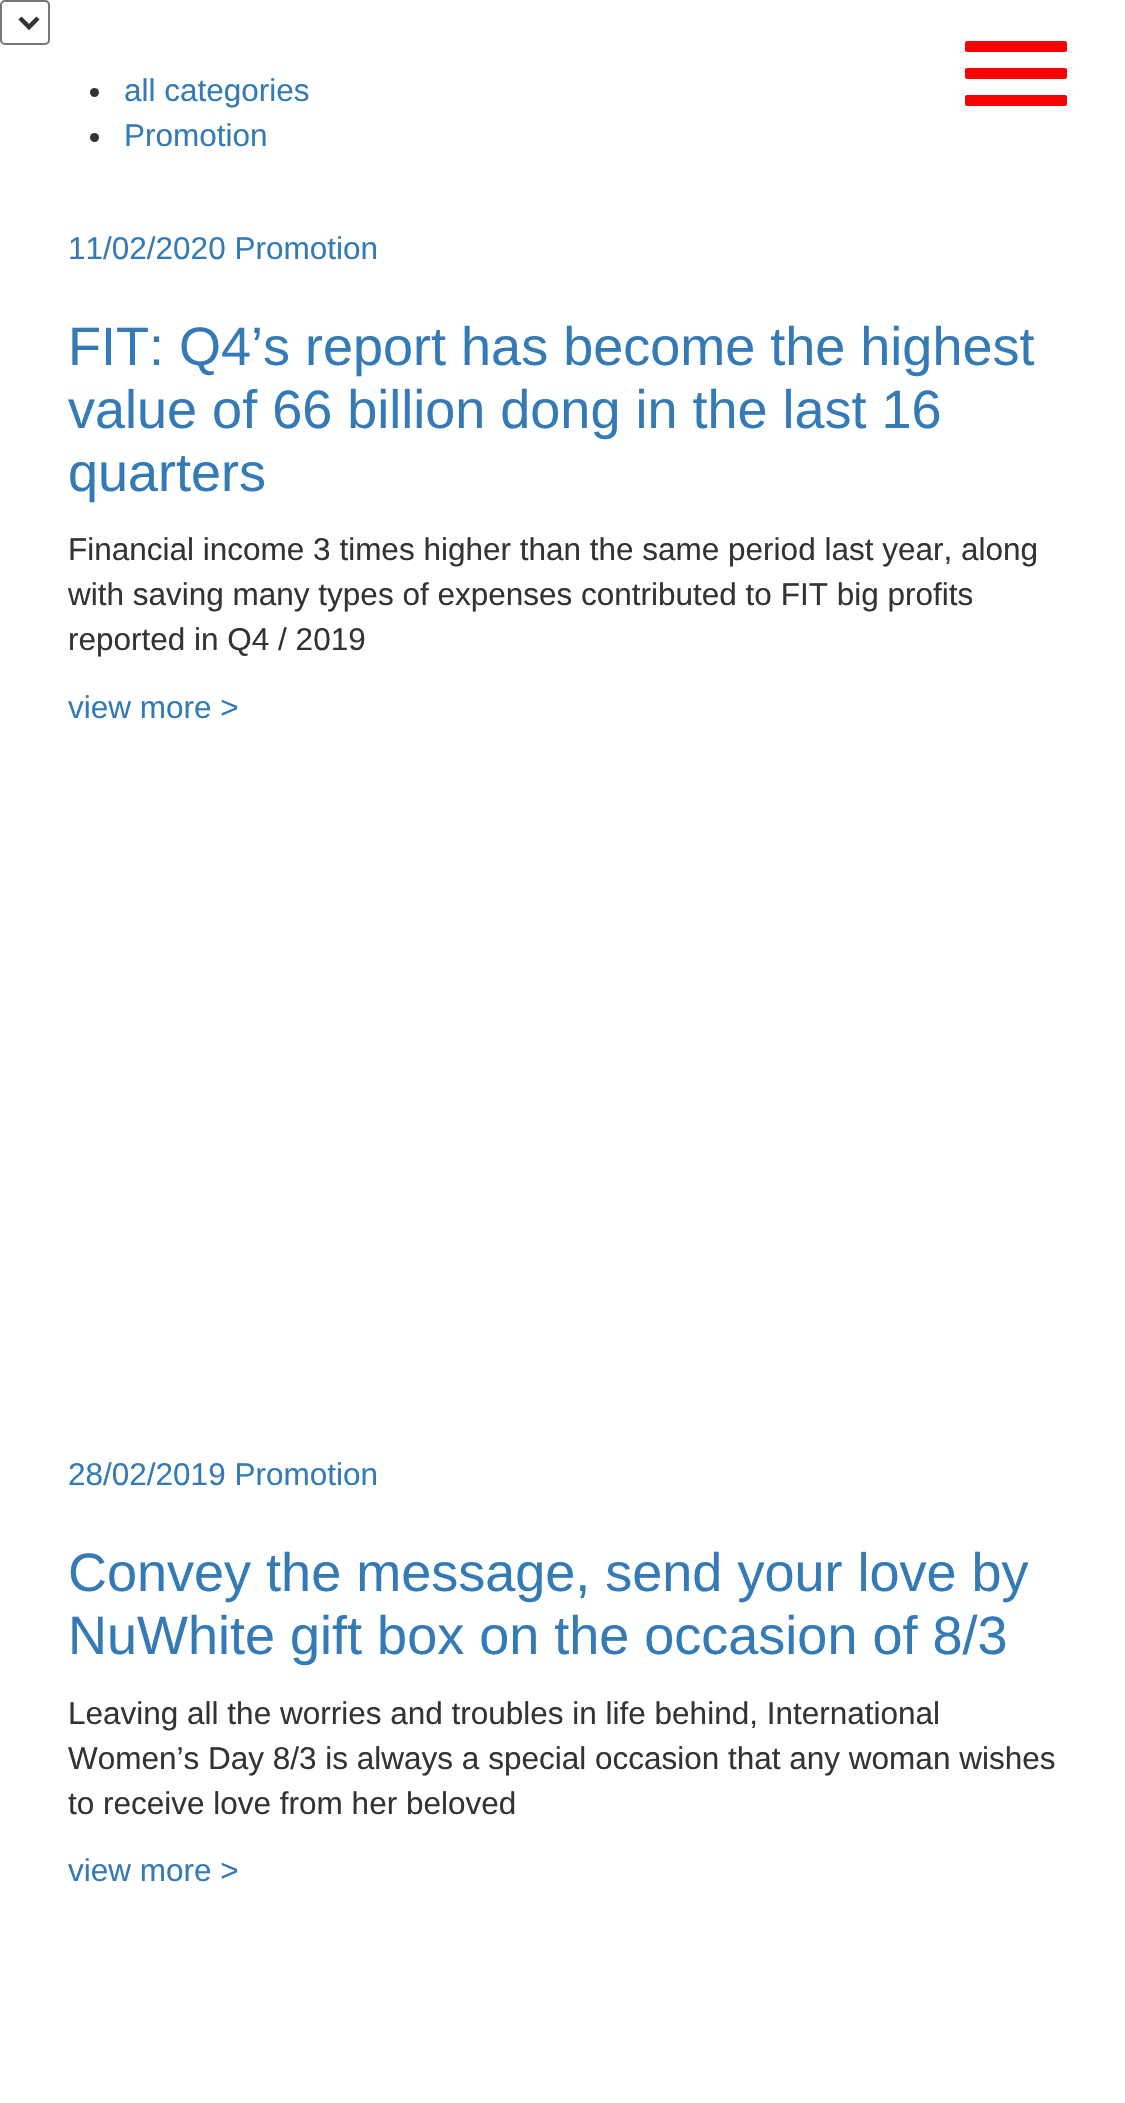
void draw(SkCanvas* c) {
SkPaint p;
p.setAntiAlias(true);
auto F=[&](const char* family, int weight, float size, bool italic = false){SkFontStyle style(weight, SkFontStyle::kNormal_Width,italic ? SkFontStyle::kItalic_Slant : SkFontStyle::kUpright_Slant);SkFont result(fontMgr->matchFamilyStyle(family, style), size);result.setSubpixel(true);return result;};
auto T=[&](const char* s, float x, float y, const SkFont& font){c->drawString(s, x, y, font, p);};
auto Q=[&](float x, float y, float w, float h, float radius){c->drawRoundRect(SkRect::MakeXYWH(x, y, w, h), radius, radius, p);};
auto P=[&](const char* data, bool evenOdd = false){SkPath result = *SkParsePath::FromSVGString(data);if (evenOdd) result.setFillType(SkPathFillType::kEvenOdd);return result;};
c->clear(0xffffffff);
p.setColor(0xfffa0001);
Q(965,41,102,11,2);
Q(965,68,102,11,2);
Q(965,95,102,11,2);
p.setStroke(true);
p.setStrokeWidth(2);
p.setColor(0xff767676);
c->drawRoundRect(SkRect::MakeXYWH(1,1,48,43),4,4,p);
p.setStrokeWidth(4.5);
p.setColor(0xff333333);
c->drawPath(P("M20 18l9 9l9-9"),p);
p.setStroke(false);
c->drawCircle(94.5,92.5,4.5,p);
auto f1 = F("Liberation Sans",400,31.5);
p.setColor(0xff337ab7);
T("all categories",124,101,f1);
p.setColor(0xff333333);
c->drawCircle(94.5,137.5,4.5,p);
p.setColor(0xff337ab7);
T("Promotion",124,146,f1);
T("11/02/2020 Promotion",68,259,f1);
auto f2 = F("Liberation Sans",400,54);
T("FIT: Q4’s report has become the highest",68,365,f2);
T("value of 66 billion dong in the last 16",68,428,f2);
T("quarters",68,491,f2);
p.setColor(0xff333333);
T("Financial income 3 times higher than the same period last year, along",68,560,f1);
T("with saving many types of expenses contributed to FIT big profits",68,605,f1);
T("reported in Q4 / 2019",68,650,f1);
p.setColor(0xff337ab7);
T("view more >",68,718,f1);
T("28/02/2019 Promotion",68,1485,f1);
T("Convey the message, send your love by",68,1591,f2);
T("NuWhite gift box on the occasion of 8/3",68,1654,f2);
p.setColor(0xff333333);
T("Leaving all the worries and troubles in life behind, International",68,1724,f1);
T("Women’s Day 8/3 is always a special occasion that any woman wishes",68,1769,f1);
T("to receive love from her beloved",68,1814,f1);
p.setColor(0xff337ab7);
T("view more >",68,1881,f1);
}
